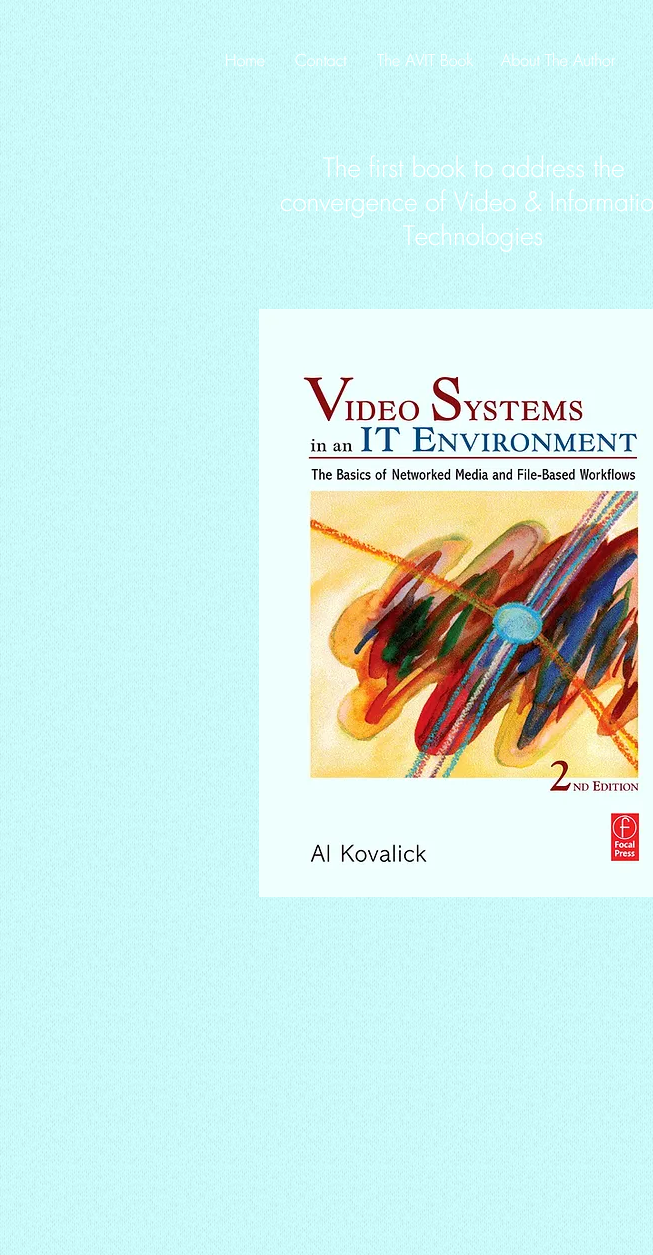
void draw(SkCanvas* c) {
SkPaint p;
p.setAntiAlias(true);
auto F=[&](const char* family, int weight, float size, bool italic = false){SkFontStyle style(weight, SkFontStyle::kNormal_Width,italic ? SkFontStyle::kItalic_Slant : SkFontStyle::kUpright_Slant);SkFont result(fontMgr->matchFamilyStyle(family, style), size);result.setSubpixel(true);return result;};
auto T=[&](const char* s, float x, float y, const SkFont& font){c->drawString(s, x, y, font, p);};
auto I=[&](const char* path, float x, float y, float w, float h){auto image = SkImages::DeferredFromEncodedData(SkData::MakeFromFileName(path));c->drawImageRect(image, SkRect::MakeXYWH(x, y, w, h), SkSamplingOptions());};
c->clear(0xffcfffff);
I("1.png",0,0,653,1255);
auto f1 = F("futura",300,16);
p.setColor(0xffffffff);
T("Home",225,66,f1);
T("Contact",295,66,f1);
T("The AVIT Book",377,66,f1);
T("About The Author",501,66,f1);
auto f2 = F("futura",300,26);
T("The first book to address the",323,177,f2);
T("convergence of Video & Informatio",280,211,f2);
T("Technologies",403,245,f2);
I("2.png",259,309,394,588);
}
